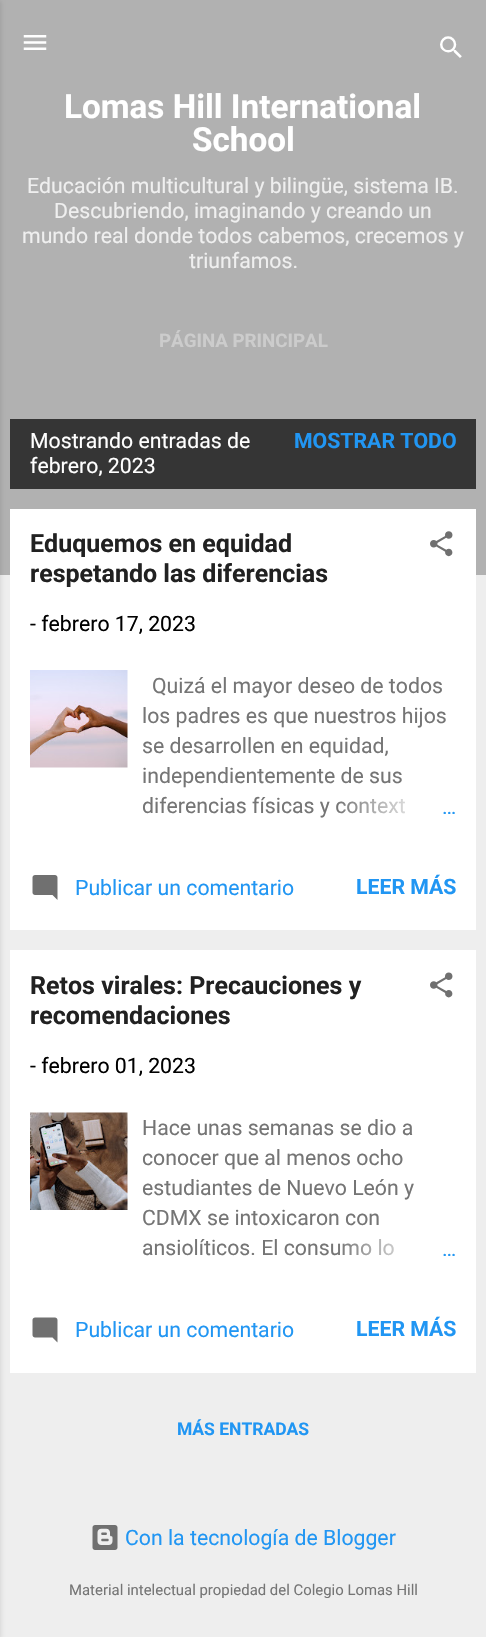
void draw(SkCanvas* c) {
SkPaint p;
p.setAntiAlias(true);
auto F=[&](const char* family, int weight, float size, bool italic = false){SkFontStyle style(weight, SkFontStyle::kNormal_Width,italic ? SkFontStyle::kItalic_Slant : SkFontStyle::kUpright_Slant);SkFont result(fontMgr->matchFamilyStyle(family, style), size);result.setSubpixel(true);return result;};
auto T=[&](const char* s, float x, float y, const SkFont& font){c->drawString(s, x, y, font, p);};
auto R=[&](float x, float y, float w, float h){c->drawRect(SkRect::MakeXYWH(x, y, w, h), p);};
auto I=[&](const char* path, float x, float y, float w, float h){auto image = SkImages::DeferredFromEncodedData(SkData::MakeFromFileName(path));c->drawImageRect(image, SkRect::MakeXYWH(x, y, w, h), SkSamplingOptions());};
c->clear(0xffeeeeee);
p.setColor(0xffb1b1b1);
R(0,0,486,575);
p.setColor(0x1a000000);
p.setMaskFilter(SkMaskFilter::MakeBlur(kNormal_SkBlurStyle, 2));
c->drawRect(SkRect::MakeXYWH(-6,1,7,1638),p);
p.setMaskFilter(nullptr);
I("1.png",23,35,24,15);
I("2.png",440,36,22,22);
auto f1 = F("Roboto",700,33.25);
p.setColor(0xffffffff);
T("Lomas Hill International",64,118,f1);
T("School",192,151,f1);
auto f2 = F("Roboto",400,21.25);
p.setColor(0xffefefef);
T("Educación multicultural y bilingüe, sistema IB.",27,193,f2);
T("Descubriendo, imaginando y creando un",54,218,f2);
T("mundo real donde todos cabemos, crecemos y",22,243,f2);
T("triunfamos.",189,268,f2);
auto f3 = F("Roboto",700,18.75);
p.setColor(0xffcccccc);
T("PÁGINA PRINCIPAL",159,347,f3);
p.setColor(0xff353535);
R(10,419,466,70);
p.setColor(0xffffffff);
T("Mostrando entradas de",30,448,f2);
T("febrero, 2023",30,473,f2);
auto f4 = F("Roboto",700,21.25);
p.setColor(0xff2196f3);
T("MOSTRAR TODO",294,448,f4);
p.setColor(0xffffffff);
R(10,509,466,421);
auto f5 = F("Roboto",700,25);
p.setColor(0xff212121);
T("Eduquemos en equidad",30,552,f5);
T("respetando las diferencias",30,582,f5);
I("3.png",430,531,23,26);
p.setColor(0xff000000);
T("- febrero 17, 2023",30,631,f2);
I("4.png",30,670,98,98);
p.setColor(0xff757575);
T("Quizá el mayor deseo de todos",152,693,f2);
T("los padres es que nuestros hijos",142,723,f2);
T("se desarrollen en equidad,",142,753,f2);
T("independientemente de sus",142,783,f2);
T("diferencias físicas y context",142,813,f2);
{
const SkColor colors[] = {0xffffffff,0xffffffff,0x00ffffff};
const float stops[] = {0,.2,1};
const SkPoint ends[] = {{456,805}, {336,805}};
p.setShader(SkGradientShader::MakeLinear(ends, colors, stops, 3, SkTileMode::kClamp));
p.setAlpha(255);
}
R(338,799,67,15);
p.setShader(nullptr);
p.setColor(0xff2196f3);
T("…",442,814,f2);
I("5.png",32,875,26,25);
T("Publicar un comentario",75,895,f2);
T("LEER MÁS",356,894,f4);
p.setColor(0xffffffff);
R(10,950,466,423);
p.setColor(0xff212121);
T("Retos virales: Precauciones y",30,994,f5);
T("recomendaciones",30,1024,f5);
I("6.png",430,972,23,26);
p.setColor(0xff000000);
T("- febrero 01, 2023",30,1073,f2);
I("7.png",30,1112,98,98);
p.setColor(0xff757575);
T("Hace unas semanas se dio a",142,1135,f2);
T("conocer que al menos ocho",142,1165,f2);
T("estudiantes de Nuevo León y",142,1195,f2);
T("CDMX se intoxicaron con",142,1225,f2);
T("ansiolíticos. El consumo lo",142,1255,f2);
{
const SkColor colors[] = {0xffffffff,0xffffffff,0x00ffffff};
const float stops[] = {0,.2,1};
const SkPoint ends[] = {{456,1248}, {336,1248}};
p.setShader(SkGradientShader::MakeLinear(ends, colors, stops, 3, SkTileMode::kClamp));
p.setAlpha(255);
}
R(338,1239,56,17);
p.setShader(nullptr);
p.setColor(0xff2196f3);
T("…",442,1256,f2);
I("8.png",32,1317,26,26);
T("Publicar un comentario",75,1337,f2);
T("LEER MÁS",356,1336,f4);
auto f6 = F("Roboto",700,17.5);
T("MÁS ENTRADAS",177,1435,f6);
I("9.png",92,1525,26,25);
T("Con la tecnología de Blogger",125,1545,f2);
auto f7 = F("Roboto",400,14.9);
p.setColor(0xff757575);
T("Material intelectual propiedad del Colegio Lomas Hill",69,1595,f7);
}
